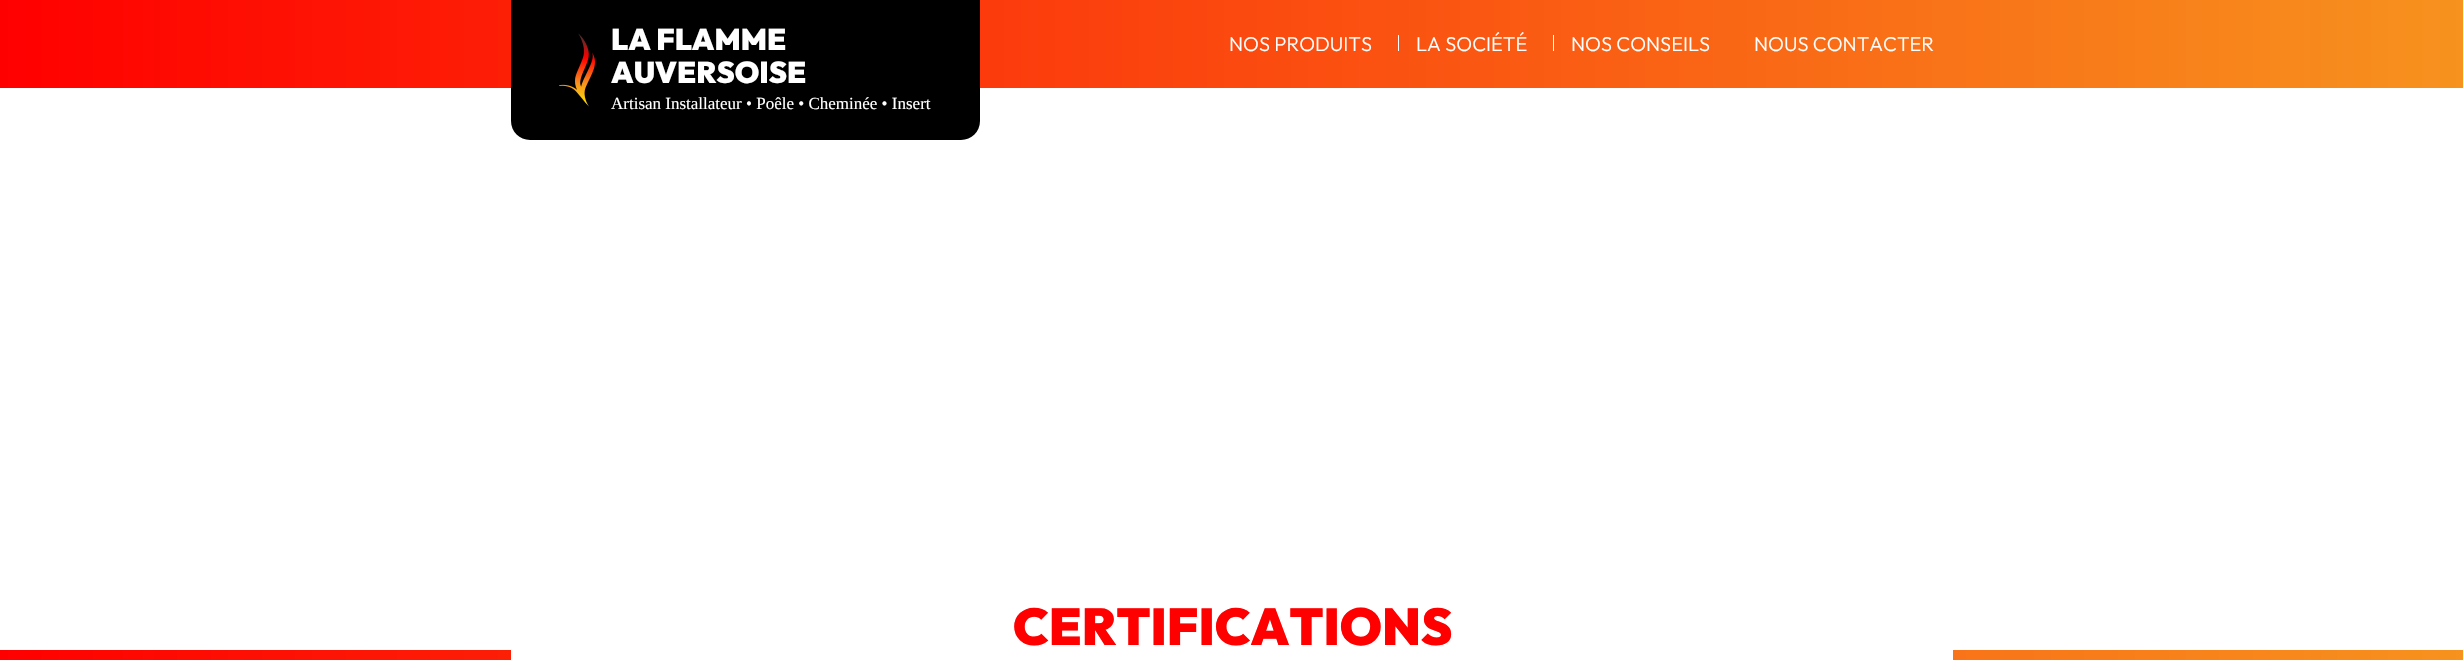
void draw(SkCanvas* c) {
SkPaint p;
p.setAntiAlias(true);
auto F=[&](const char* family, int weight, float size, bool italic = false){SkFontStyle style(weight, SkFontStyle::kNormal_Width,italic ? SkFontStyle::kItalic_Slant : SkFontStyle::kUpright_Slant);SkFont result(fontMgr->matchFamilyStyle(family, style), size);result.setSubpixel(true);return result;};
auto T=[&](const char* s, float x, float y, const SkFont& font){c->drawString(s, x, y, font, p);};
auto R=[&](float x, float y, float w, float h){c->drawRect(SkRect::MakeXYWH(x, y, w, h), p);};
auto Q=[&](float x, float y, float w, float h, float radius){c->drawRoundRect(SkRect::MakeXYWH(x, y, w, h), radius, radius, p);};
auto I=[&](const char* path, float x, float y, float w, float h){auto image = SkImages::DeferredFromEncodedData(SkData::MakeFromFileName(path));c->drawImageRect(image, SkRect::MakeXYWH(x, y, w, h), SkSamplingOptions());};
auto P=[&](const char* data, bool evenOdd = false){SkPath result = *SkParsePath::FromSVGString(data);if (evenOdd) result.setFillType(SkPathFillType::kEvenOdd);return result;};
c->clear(0xffffffff);
{
const SkColor colors[] = {0xffff0000,0xfff7921e};
const float stops[] = {0,1};
const SkPoint ends[] = {{0,44}, {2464,44}};
p.setShader(SkGradientShader::MakeLinear(ends, colors, stops, 2, SkTileMode::kClamp));
p.setAlpha(255);
}
R(0,0,2463,88);
p.setShader(nullptr);
p.setColor(0xff000000);
c->drawPath(P("M511 0h469v121c0 10.5-8.5 19-19 19h-431c-10.5 0-19-8.5-19-19z"),p);
I("1.png",559,33,36,74);
auto f1 = F("Outfit",900,30);
p.setColor(0xffffffff);
T("LA FLAMME",611,50,f1);
T("AUVERSOISE",611,83,f1);
auto f2 = F("Liberation Serif",400,17);
T("Artisan Installateur • Poêle • Cheminée • Insert",611,109,f2);
auto f3 = F("Outfit",300,20);
T("NOS PRODUITS",1229,51,f3);
R(1398,35,1,16);
T("LA SOCIÉTÉ",1416,51,f3);
R(1553,35,1,16);
T("NOS CONSEILS",1571,51,f3);
T("NOUS CONTACTER",1754,51,f3);
{
const SkColor colors[] = {0xffff0000,0xfff7921e};
const float stops[] = {0,1};
const SkPoint ends[] = {{0,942}, {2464,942}};
p.setShader(SkGradientShader::MakeLinear(ends, colors, stops, 2, SkTileMode::kClamp));
p.setAlpha(255);
}
R(0,650,2463,10);
p.setShader(nullptr);
p.setColor(0xffffffff);
Q(511,538,1442,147,25);
auto f4 = F("Outfit",900,51.5);
p.setColor(0xffff0000);
T("CERTIFICATIONS",1013,645,f4);
}
